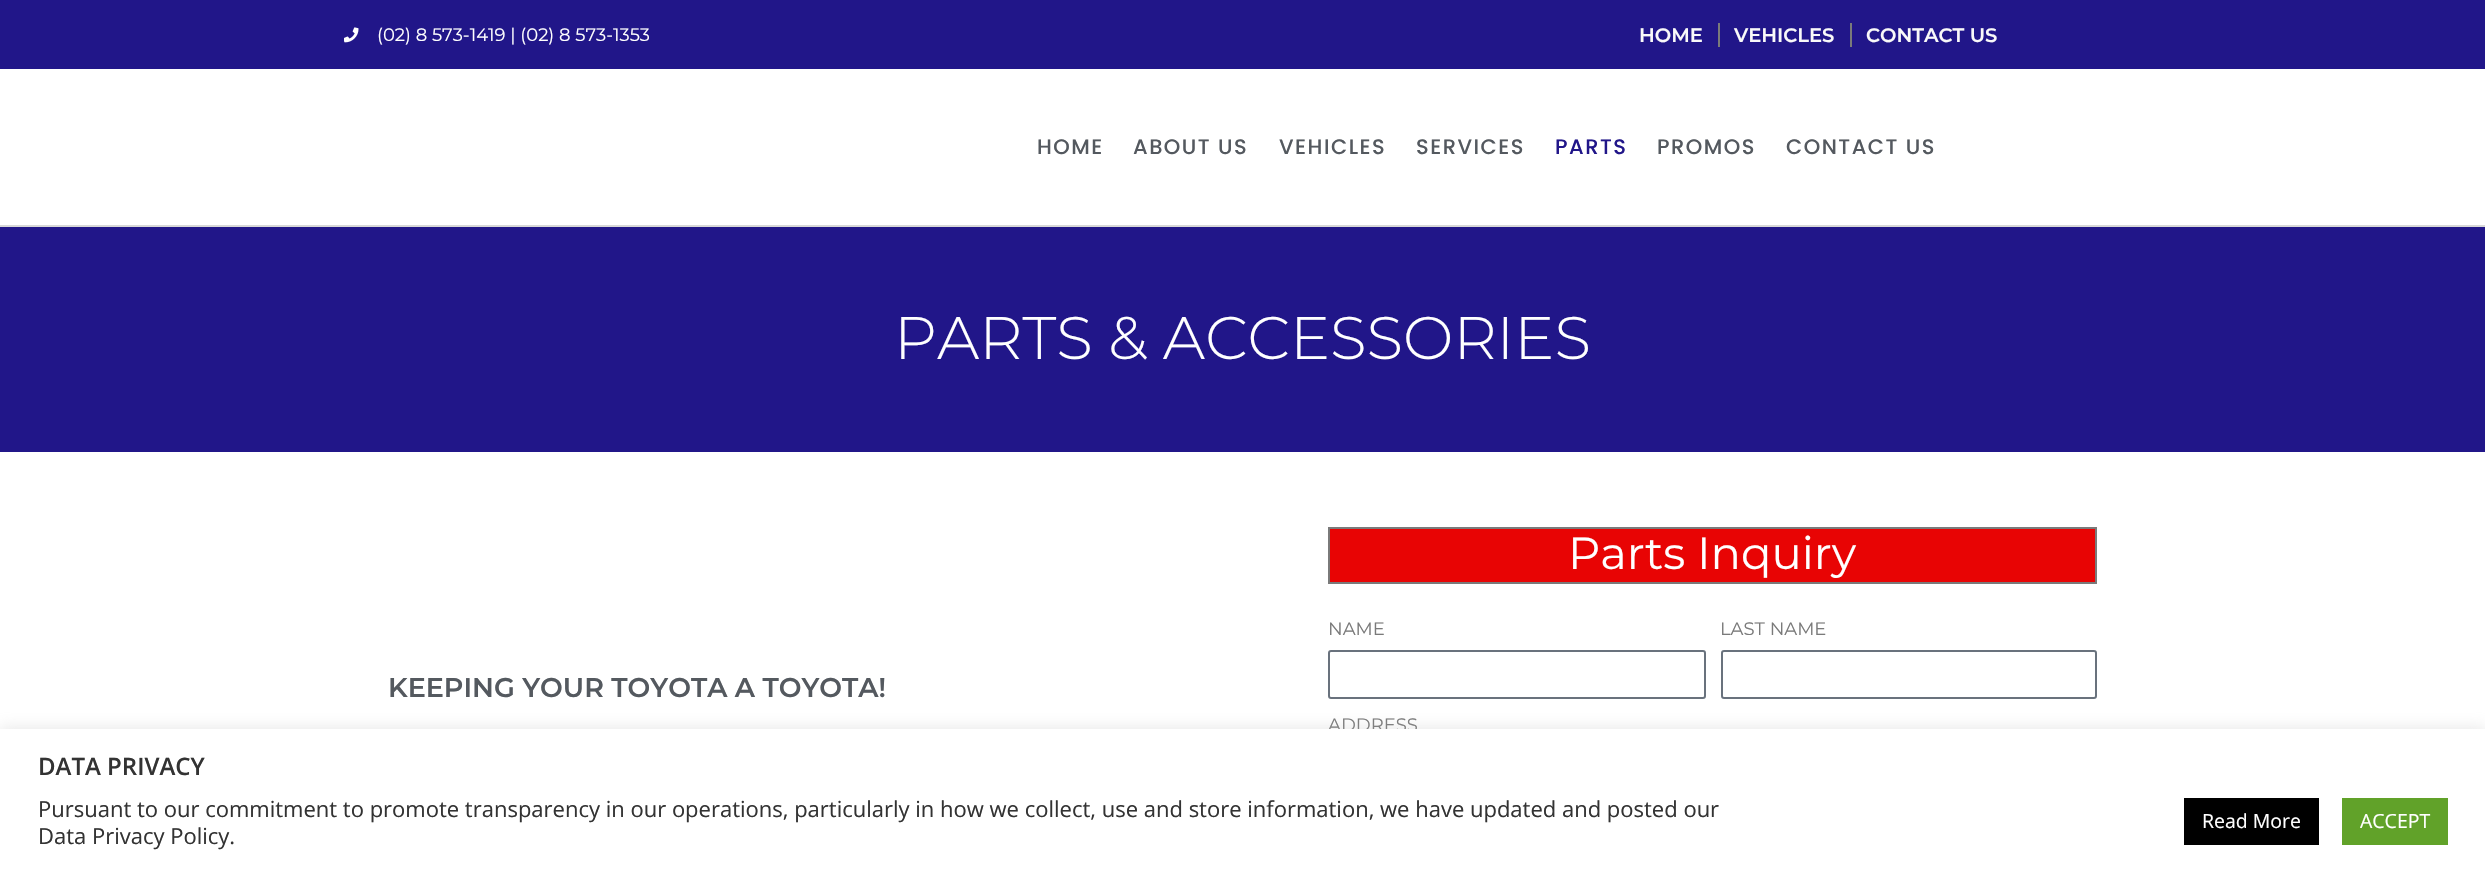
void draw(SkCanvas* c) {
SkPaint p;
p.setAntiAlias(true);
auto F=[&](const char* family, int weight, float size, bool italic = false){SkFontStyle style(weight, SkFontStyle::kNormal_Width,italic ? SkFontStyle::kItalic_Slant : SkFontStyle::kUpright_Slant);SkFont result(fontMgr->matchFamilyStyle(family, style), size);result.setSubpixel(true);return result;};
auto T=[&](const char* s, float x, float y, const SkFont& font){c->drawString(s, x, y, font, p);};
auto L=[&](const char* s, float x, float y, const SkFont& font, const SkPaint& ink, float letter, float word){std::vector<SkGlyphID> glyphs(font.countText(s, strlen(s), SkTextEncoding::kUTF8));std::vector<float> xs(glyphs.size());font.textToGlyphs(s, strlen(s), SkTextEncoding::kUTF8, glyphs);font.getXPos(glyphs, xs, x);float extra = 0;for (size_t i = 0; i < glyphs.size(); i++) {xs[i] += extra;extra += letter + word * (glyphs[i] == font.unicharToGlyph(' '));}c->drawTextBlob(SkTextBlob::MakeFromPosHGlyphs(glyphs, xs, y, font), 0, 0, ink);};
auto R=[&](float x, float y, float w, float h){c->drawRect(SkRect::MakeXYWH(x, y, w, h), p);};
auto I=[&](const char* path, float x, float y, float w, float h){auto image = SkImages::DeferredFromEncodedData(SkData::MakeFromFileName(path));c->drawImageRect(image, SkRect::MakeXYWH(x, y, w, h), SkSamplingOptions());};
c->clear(0xffffffff);
p.setColor(0xff211689);
R(0,0,2485,69);
I("1.png",344,27,15,16);
auto f1 = F("Montserrat",400,18);
p.setColor(0xffffffff);
T("(02) 8 573-1419 | (02) 8 573-1353",377,41,f1);
auto f2 = F("Montserrat",600,19.5);
p.setColor(0xfff9f9f9);
T("HOME",1639,42,f2);
p.setColor(0xff7a7a7a);
R(1718,23,2,24);
p.setColor(0xfff9f9f9);
T("VEHICLES",1734,42,f2);
p.setColor(0xff7a7a7a);
R(1850,23,2,24);
p.setColor(0xfff9f9f9);
T("CONTACT US",1866,42,f2);
p.setColor(0xffd8d8d8);
R(0,225,2485,2);
auto f3 = F("Poppins",500,21);
p.setColor(0xff54595f);
L("HOME",1037,154,f3,p,1.5,0);
L("ABOUT US",1133,154,f3,p,1.5,0);
L("VEHICLES",1279,154,f3,p,1.5,0);
L("SERVICES",1416,154,f3,p,1.5,0);
p.setColor(0xff211689);
L("PARTS",1555,154,f3,p,1.5,0);
p.setColor(0xff54595f);
L("PROMOS",1657,154,f3,p,1.5,0);
L("CONTACT US",1786,154,f3,p,1.5,0);
p.setColor(0xff211689);
R(0,227,2485,225);
auto f4 = F("Montserrat",300,60);
p.setColor(0xffffffff);
T("PARTS & ACCESSORIES",894,359,f4);
auto f5 = F("Montserrat",600,27);
p.setColor(0xff54595f);
T("KEEPING YOUR TOYOTA A TOYOTA!",388,697,f5);
p.setColor(0xffe80404);
c->drawRect(SkRect::MakeXYWH(1329,528,767,55),p);
p.setStroke(true);
p.setStrokeWidth(2);
p.setColor(0xff7a7a7a);
c->drawRect(SkRect::MakeXYWH(1329,528,767,55),p);
auto f6 = F("Montserrat",400,45);
p.setStroke(false);
p.setColor(0xffffffff);
T("Parts Inquiry",1568,569,f6);
p.setColor(0xff7a7a7a);
T("NAME",1328,635,f1);
p.setStroke(true);
p.setColor(0xff69727d);
c->drawRoundRect(SkRect::MakeXYWH(1329,651,376,47),2,2,p);
p.setStroke(false);
p.setColor(0xff7a7a7a);
T("LAST NAME",1720,635,f1);
p.setStroke(true);
p.setColor(0xff69727d);
c->drawRoundRect(SkRect::MakeXYWH(1722,651,374,47),2,2,p);
p.setStroke(false);
p.setColor(0xff7a7a7a);
T("ADDRESS",1328,731,f1);
p.setColor(0x4dacabab);
p.setMaskFilter(SkMaskFilter::MakeBlur(kNormal_SkBlurStyle, 7.5));
c->drawRect(SkRect::MakeXYWH(0,728,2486,144),p);
p.setMaskFilter(nullptr);
p.setColor(0xffffffff);
R(0,729,2485,143);
auto f7 = F("Open Sans",600,24);
p.setColor(0xff333333);
T("DATA PRIVACY",38,775,f7);
auto f8 = F("Open Sans",400,22);
T("Pursuant to our commitment to promote transparency in our operations, particularly in how we collect, use and store information, we have updated and posted our",38,817,f8);
T("Data Privacy Policy.",38,844,f8);
p.setColor(0xff000000);
R(2184,798,135,47);
auto f9 = F("Open Sans",400,19.5);
p.setColor(0xffffffff);
T("Read More",2202,828,f9);
p.setColor(0xff61a229);
R(2342,798,106,47);
p.setColor(0xffffffff);
T("ACCEPT",2360,828,f9);
}
